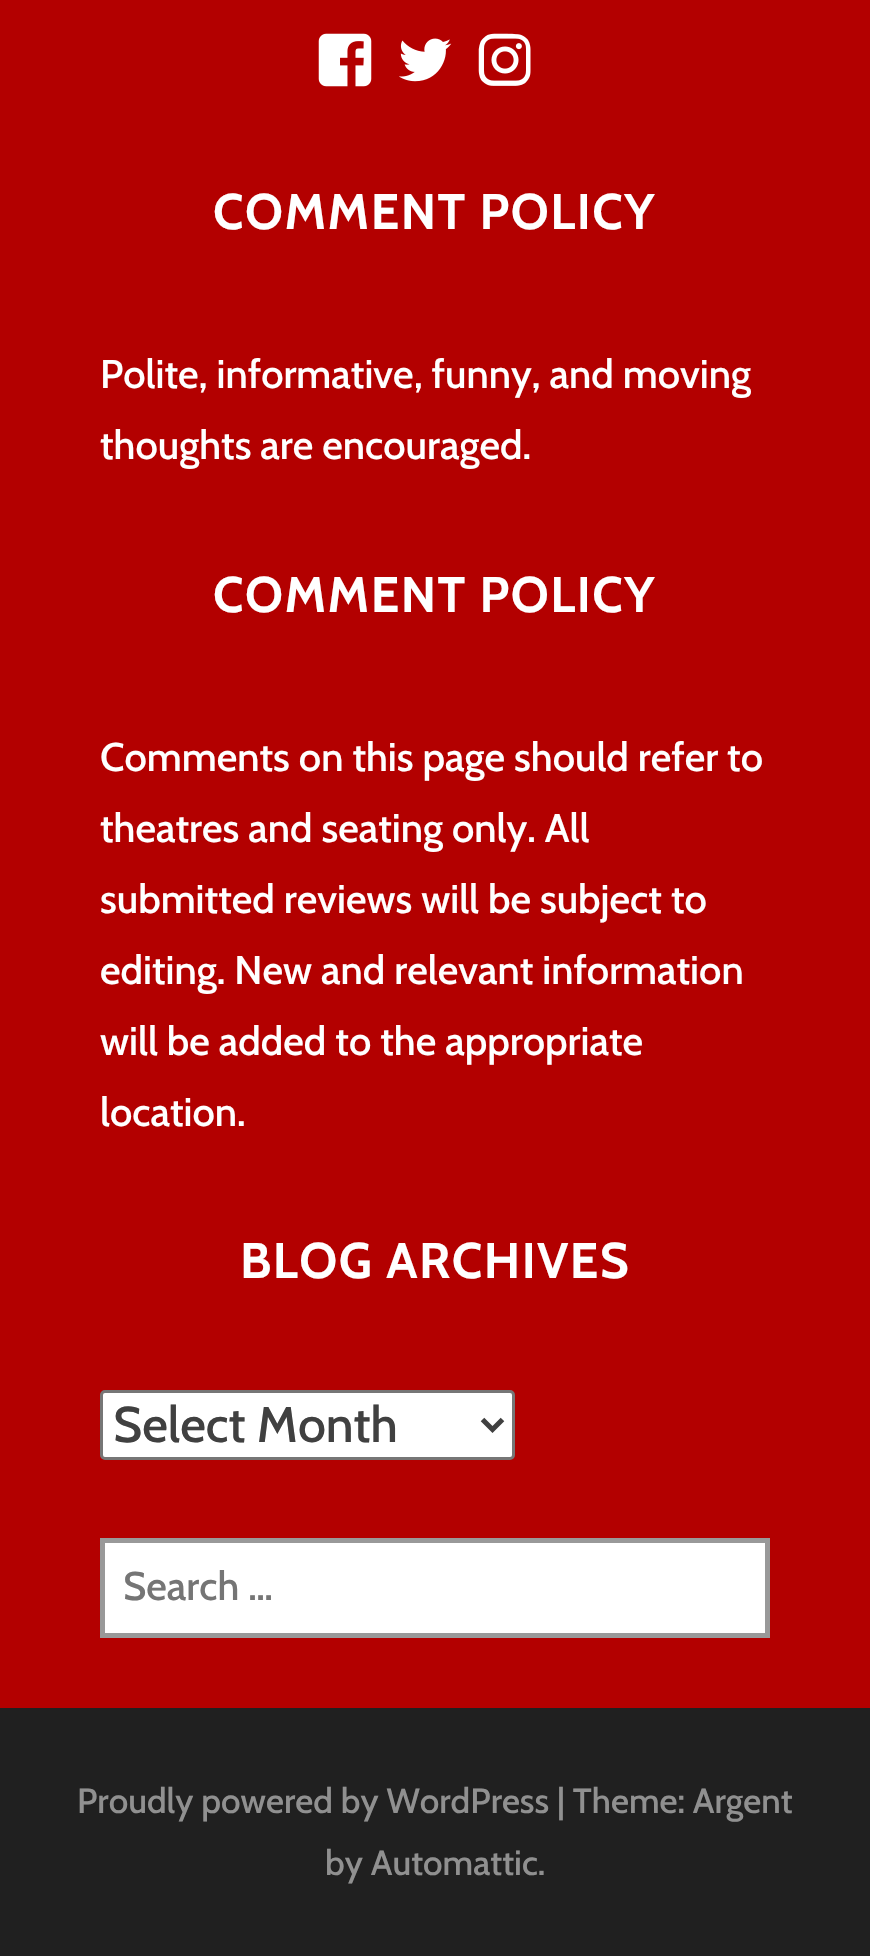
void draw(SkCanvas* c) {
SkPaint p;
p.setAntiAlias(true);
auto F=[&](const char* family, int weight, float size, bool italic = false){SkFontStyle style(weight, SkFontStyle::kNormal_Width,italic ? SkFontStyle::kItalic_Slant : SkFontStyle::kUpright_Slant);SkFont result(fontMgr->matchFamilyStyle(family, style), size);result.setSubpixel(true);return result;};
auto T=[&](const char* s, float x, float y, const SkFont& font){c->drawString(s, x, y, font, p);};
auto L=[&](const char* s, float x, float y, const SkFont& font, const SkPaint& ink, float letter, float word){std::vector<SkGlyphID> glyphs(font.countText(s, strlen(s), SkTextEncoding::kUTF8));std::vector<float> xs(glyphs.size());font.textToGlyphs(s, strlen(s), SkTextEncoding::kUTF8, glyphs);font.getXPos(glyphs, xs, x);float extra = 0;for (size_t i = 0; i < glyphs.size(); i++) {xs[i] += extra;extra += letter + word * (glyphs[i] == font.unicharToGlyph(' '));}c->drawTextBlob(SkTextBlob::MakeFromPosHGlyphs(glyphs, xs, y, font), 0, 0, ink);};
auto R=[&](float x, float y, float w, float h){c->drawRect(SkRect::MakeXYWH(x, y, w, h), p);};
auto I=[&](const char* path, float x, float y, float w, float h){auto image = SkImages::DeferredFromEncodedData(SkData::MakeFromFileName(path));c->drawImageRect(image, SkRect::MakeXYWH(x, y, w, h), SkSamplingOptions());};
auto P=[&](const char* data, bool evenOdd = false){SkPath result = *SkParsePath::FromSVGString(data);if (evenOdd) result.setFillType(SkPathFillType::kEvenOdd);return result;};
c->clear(0xffb30000);
I("1.png",318,33,54,54);
I("2.png",399,38,53,44);
I("3.png",478,33,53,53);
auto f1 = F("Cabin",700,50);
p.setColor(0xffffffff);
L("COMMENT POLICY",213,229,f1,p,1.5,0);
auto f2 = F("Cabin",500,40);
T("Polite, informative, funny, and moving",100,388,f2);
T("thoughts are encouraged.",100,459,f2);
L("COMMENT POLICY",213,612,f1,p,1.5,0);
T("Comments on this page should refer to",100,771,f2);
T("theatres and seating only. All",100,842,f2);
T("submitted reviews will be subject to",100,913,f2);
T("editing. New and relevant information",100,984,f2);
T("will be added to the appropriate",100,1055,f2);
T("location.",100,1126,f2);
L("BLOG ARCHIVES",240,1278,f1,p,1.5,0);
c->drawRoundRect(SkRect::MakeXYWH(101.5,1391.5,412,67),3.5,3.5,p);
p.setStroke(true);
p.setStrokeWidth(3);
p.setColor(0xff767676);
c->drawRoundRect(SkRect::MakeXYWH(101.5,1391.5,412,67),3.5,3.5,p);
p.setStrokeWidth(5);
p.setColor(0xff404040);
c->drawPath(P("M482.5 1419.5l10 10l10-10"),p);
auto f3 = F("Cabin",500,50);
p.setStroke(false);
T("Select Month",113,1442,f3);
p.setColor(0xffffffff);
c->drawRect(SkRect::MakeXYWH(102.5,1540.5,665,95),p);
p.setStroke(true);
p.setColor(0xff999999);
c->drawRect(SkRect::MakeXYWH(102.5,1540.5,665,95),p);
p.setStroke(false);
p.setColor(0xff757575);
T("Search …",123,1600,f2);
p.setColor(0xff202020);
R(0,1708,870,248);
auto f4 = F("Cabin",500,35);
p.setColor(0xff909090);
T("Proudly powered by WordPress | Theme: Argent",77,1813,f4);
T("by Automattic.",325,1875,f4);
}
